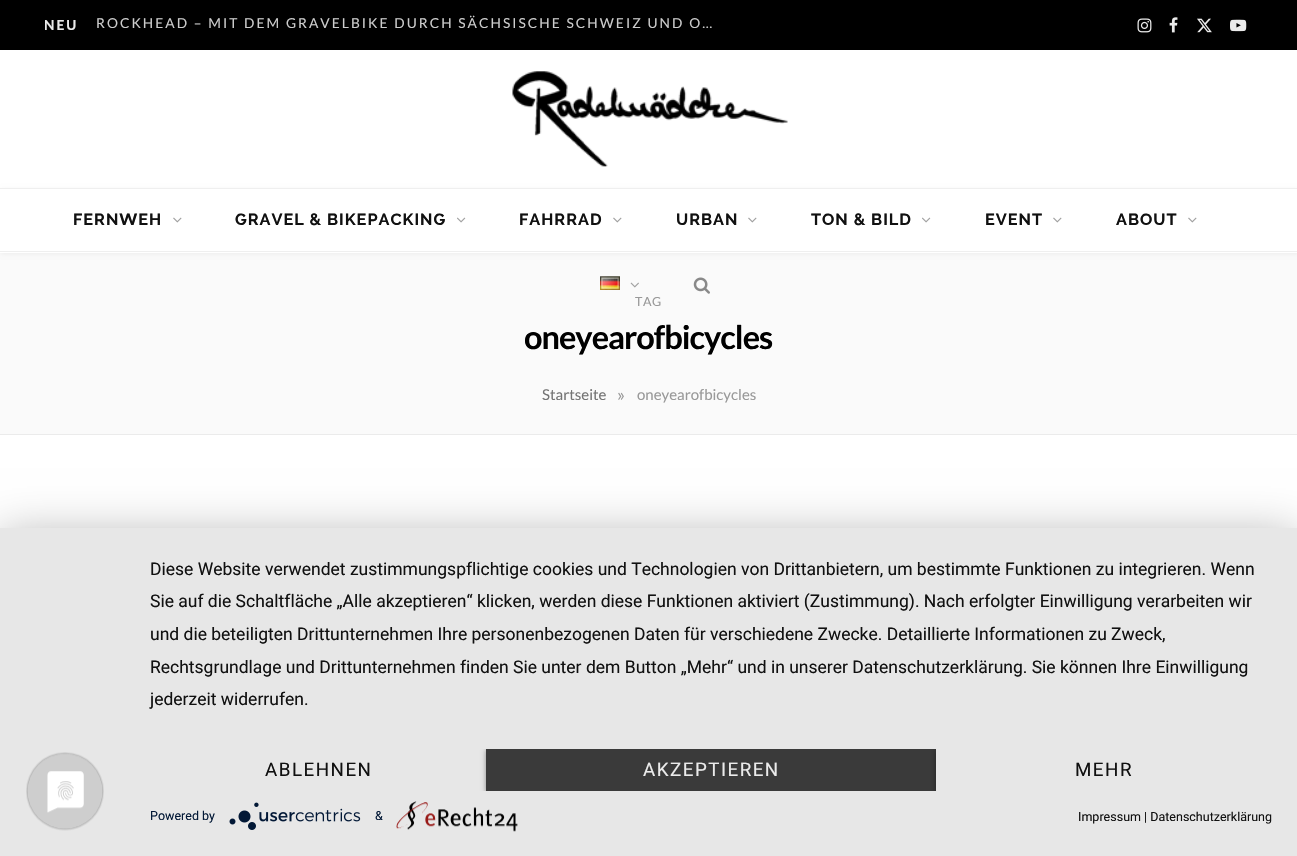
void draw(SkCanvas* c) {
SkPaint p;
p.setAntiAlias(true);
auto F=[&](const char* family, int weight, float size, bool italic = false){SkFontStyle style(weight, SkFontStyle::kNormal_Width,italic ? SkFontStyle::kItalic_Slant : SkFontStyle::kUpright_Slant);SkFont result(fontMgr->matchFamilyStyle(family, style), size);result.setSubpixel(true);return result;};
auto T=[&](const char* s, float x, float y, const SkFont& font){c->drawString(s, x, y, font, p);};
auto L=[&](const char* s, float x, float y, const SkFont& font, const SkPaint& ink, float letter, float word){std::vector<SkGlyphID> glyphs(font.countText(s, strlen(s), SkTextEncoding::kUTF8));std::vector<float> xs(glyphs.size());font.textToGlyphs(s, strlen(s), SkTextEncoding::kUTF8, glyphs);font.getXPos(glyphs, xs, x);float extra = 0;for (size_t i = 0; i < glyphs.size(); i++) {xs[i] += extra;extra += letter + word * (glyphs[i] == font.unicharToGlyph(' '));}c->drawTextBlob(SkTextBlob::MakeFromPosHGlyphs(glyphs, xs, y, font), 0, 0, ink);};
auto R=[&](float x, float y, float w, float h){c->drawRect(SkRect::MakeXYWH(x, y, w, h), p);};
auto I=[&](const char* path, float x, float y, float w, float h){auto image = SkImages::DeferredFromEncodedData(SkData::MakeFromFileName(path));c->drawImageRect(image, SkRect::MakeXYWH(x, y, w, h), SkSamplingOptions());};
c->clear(0xffffffff);
p.setColor(0xff000000);
R(0,0,1297,50);
auto f1 = F("Lato",700,13.75);
p.setColor(0xffebebeb);
L("NEU",44,30,f1,p,2.05,0);
auto f2 = F("Lato",400,13.75);
p.setColor(0xffcccccc);
L("ROCKHEAD – MIT DEM GRAVELBIKE DURCH SÄCHSISCHE SCHWEIZ UND O…",96,28,f2,p,2.05,0);
I("1.png",1137,18,15,15);
I("2.png",1169,17,9,16);
I("3.png",1197,18,15,15);
I("4.png",1230,19,17,13);
I("5.png",512,71,276,96);
p.setColor(0xfffafafa);
R(0,253,1297,181);
p.setColor(0x0d000000);
p.setMaskFilter(SkMaskFilter::MakeBlur(kNormal_SkBlurStyle, 2));
c->drawRect(SkRect::MakeXYWH(1,189,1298,65),p);
p.setMaskFilter(nullptr);
p.setColor(0xffffffff);
R(0,189,1297,64);
p.setColor(0xffefefef);
R(0,188,1297,1);
R(0,251,1297,1);
auto f3 = F("Raleway",700,16.25);
p.setColor(0xff111111);
L("FERNWEH",73,225,f3,p,1,0);
I("6.png",173,217,9,6);
L("GRAVEL & BIKEPACKING",235,225,f3,p,1,0);
I("7.png",457,217,9,6);
L("FAHRRAD",519,225,f3,p,1,0);
I("6.png",613,217,9,6);
L("URBAN",676,225,f3,p,1,0);
I("6.png",748,217,9,6);
L("TON & BILD",811,225,f3,p,1,0);
I("7.png",922,217,9,6);
L("EVENT",985,225,f3,p,1,0);
I("6.png",1053,217,9,6);
L("ABOUT",1116,225,f3,p,1,0);
I("6.png",1188,217,9,6);
I("8.png",600,276,20,14);
I("9.png",630,282,9,6);
I("10.png",693,277,17,17);
p.setColor(0xffebebeb);
R(0,434,1297,1);
auto f4 = F("Lato",400,12.5);
p.setColor(0xff999999);
L("TAG",635,306,f4,p,.5,0);
auto f5 = F("Lato",700,32.5);
p.setColor(0xff000000);
L("oneyearofbicycles",524,349,f5,p,-1,0);
auto f6 = F("Lato",400,15);
p.setColor(0xff747474);
T("Startseite",542,400,f6);
auto f7 = F("Lato",400,17.5);
p.setColor(0xff999999);
T("»",617,401,f7);
T("oneyearofbicycles",637,400,f6);
p.setColor(0x4d000000);
p.setMaskFilter(SkMaskFilter::MakeBlur(kNormal_SkBlurStyle, 22.5));
c->drawRect(SkRect::MakeXYWH(0,535,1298,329),p);
p.setMaskFilter(nullptr);
p.setColor(0xffe7e7e7);
R(0,528,1297,328);
I("11.png",26,752,78,79);
auto f8 = F("Roboto",400,17.5);
p.setColor(0xff111111);
T("Diese Website verwendet zustimmungspflichtige cookies und Technologien von Drittanbietern, um bestimmte Funktionen zu integrieren. Wenn",150,575,f8);
T("Sie auf die Schaltfläche „Alle akzeptieren“ klicken, werden diese Funktionen aktiviert (Zustimmung). Nach erfolgter Einwilligung verarbeiten wir",150,607,f8);
T("und die beteiligten Drittunternehmen Ihre personenbezogenen Daten für verschiedene Zwecke. Detaillierte Informationen zu Zweck,",150,640,f8);
T("Rechtsgrundlage und Drittunternehmen finden Sie unter dem Button „Mehr“ und in unserer Datenschutzerklärung. Sie können Ihre Einwilligung",150,673,f8);
T("jederzeit widerrufen.",150,705,f8);
auto f9 = F("Roboto",400,18.75);
L("ABLEHNEN",265,776,f9,p,1.5,0);
I("13.png",396,801,122,31);
c->save();
c->clipRect(SkRect::MakeXYWH(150,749,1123,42));
p.setColor(0x66000000);
p.setMaskFilter(SkMaskFilter::MakeBlur(kNormal_SkBlurStyle, 2.5));
c->drawRect(SkRect::MakeXYWH(486,750,450,43),p);
p.setMaskFilter(nullptr);
c->restore();
p.setColor(0xff3a3a3a);
R(486,749,450,42);
p.setColor(0xffebebeb);
L("AKZEPTIEREN",643,776,f9,p,1.5,0);
c->save();
c->clipRect(SkRect::MakeXYWH(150,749,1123,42));
p.setColor(0x66000000);
p.setMaskFilter(SkMaskFilter::MakeBlur(kNormal_SkBlurStyle, 2.5));
c->drawRect(SkRect::MakeXYWH(936,750,337,43),p);
p.setMaskFilter(nullptr);
c->restore();
p.setColor(0xffe7e7e7);
R(936,749,337,42);
p.setColor(0xff111111);
L("MEHR",1075,776,f9,p,1.5,0);
auto f10 = F("Roboto",400,12.5);
p.setColor(0xff021836);
T("Powered by",150,820,f10);
I("12.png",229,802,132,28);
T("&",375,820,f10);
p.setColor(0xff111111);
T("Impressum | Datenschutzerklärung",1078,821,f10);
}
